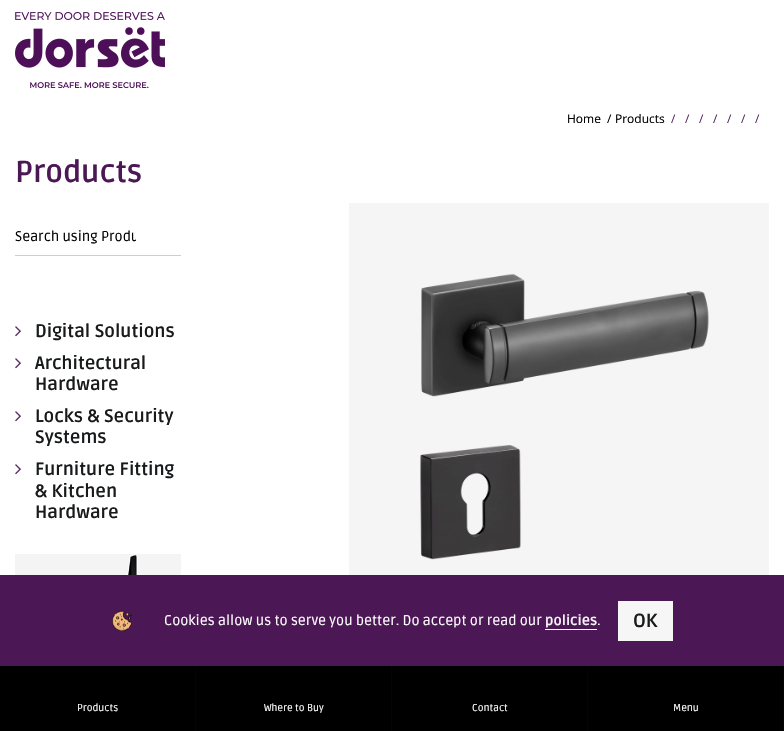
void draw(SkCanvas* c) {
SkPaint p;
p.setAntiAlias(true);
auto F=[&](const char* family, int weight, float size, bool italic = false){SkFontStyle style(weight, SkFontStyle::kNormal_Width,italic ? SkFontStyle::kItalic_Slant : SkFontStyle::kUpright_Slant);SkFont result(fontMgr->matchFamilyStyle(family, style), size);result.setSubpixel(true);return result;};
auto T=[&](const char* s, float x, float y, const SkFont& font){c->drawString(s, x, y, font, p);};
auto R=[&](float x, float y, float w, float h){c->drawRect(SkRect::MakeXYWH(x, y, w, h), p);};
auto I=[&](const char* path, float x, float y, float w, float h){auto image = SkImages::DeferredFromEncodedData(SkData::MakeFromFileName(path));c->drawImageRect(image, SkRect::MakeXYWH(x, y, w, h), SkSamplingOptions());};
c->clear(0xffffffff);
I("1.png",15,12,150,76);
auto f1 = F("Open Sans",400,12);
p.setColor(0xff000000);
T("Home",567,123,f1);
T("/",607,123,f1);
T("Products",615,123,f1);
p.setColor(0xff552d62);
T("/",671,123,f1);
T("/",685,123,f1);
T("/",699,123,f1);
T("/",713,123,f1);
T("/",727,123,f1);
T("/",741,123,f1);
T("/",755,123,f1);
auto f2 = F("Ruda",700,30);
p.setColor(0xff4c1755);
T("Products",15,182,f2);
p.setColor(0xffcecece);
R(15,255,166,1);
c->save();
c->clipRect(SkRect::MakeXYWH(15,228,121,17));
auto f3 = F("Ruda",400,14);
p.setColor(0xff000000);
T("Search using Produ",15,241,f3);
c->restore();
I("2.png",15,326,6,11);
auto f4 = F("Ruda",700,18);
p.setColor(0xff181a1b);
T("Digital Solutions",35,337,f4);
I("2.png",15,358,6,11);
T("Architectural",35,369,f4);
T("Hardware",35,390,f4);
I("2.png",15,411,6,11);
T("Locks & Security",35,422,f4);
T("Systems",35,443,f4);
I("2.png",15,464,6,11);
T("Furniture Fitting",35,475,f4);
T("& Kitchen",35,497,f4);
T("Hardware",35,518,f4);
I("3.png",15,554,166,21);
I("4.png",349,203,420,372);
p.setColor(0xff000000);
R(0,666,783,65);
p.setColor(0xff080202);
R(195,662,1,69);
R(391,662,1,69);
R(587,662,1,69);
R(783,662,1,69);
p.setColor(0xff4c1755);
R(0,575,784,91);
I("5.png",112,610,20,21);
p.setColor(0xffffffff);
T("Cookies allow us to serve you better. Do accept or read our",164,625,f3);
auto f5 = F("Ruda",700,14);
p.setColor(0xfff6f6f6);
T("policies",545,625,f5);
p.setColor(0xffffffff);
R(545,629,52,1);
T(".",597,625,f3);
p.setColor(0xfff6f6f6);
R(618,601,55,40);
auto f6 = F("Ruda",700,19);
p.setColor(0xff181a1b);
T("OK",633,627,f6);
auto f7 = F("Ruda",400,10);
p.setColor(0xffffffff);
T("Products",77,711,f7);
T("Where to Buy",264,711,f7);
T("Contact",472,711,f7);
T("Menu",673,711,f7);
}
